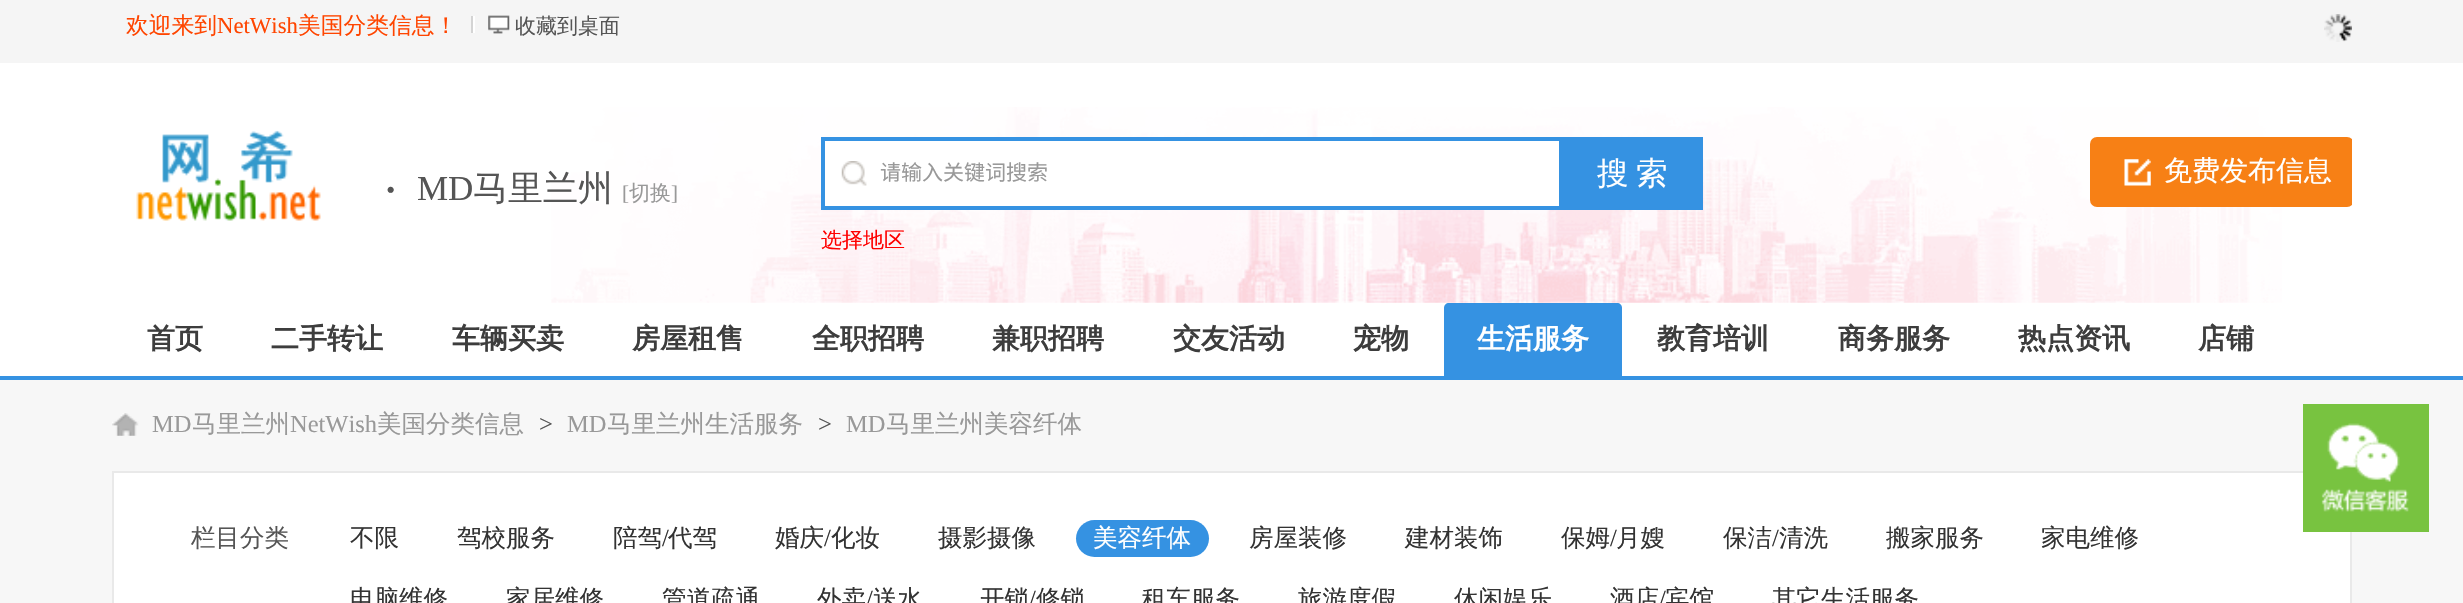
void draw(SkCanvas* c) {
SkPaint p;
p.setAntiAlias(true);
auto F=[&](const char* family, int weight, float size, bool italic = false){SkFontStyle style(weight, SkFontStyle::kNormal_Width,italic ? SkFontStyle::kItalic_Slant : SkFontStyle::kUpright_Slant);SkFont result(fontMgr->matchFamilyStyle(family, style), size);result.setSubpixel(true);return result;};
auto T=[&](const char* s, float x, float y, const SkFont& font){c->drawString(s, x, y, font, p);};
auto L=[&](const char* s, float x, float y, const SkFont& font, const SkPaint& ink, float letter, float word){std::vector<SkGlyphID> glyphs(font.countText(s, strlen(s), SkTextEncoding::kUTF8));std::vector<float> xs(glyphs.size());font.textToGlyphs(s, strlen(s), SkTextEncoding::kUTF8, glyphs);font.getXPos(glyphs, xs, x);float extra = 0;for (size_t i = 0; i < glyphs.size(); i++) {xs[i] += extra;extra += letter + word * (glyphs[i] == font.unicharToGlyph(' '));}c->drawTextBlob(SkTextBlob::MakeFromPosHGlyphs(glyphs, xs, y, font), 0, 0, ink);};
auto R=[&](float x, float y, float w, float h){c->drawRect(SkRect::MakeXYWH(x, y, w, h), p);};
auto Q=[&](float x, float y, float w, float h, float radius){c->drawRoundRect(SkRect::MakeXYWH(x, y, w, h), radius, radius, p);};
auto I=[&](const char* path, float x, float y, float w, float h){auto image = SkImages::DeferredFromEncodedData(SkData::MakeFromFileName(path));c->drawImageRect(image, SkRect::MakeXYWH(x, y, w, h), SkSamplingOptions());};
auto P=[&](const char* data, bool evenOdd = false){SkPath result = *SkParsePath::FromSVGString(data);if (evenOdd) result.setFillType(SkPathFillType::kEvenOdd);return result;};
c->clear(0xffffffff);
I("1.png",551,107,1731,196);
p.setColor(0xfff5f5f5);
R(0,0,2463,63);
auto f1 = F("WenQuanYi Zen Hei",500,22.75);
p.setColor(0xffff4500);
T("欢迎来到",126,33,f1);
auto f2 = F("Liberation Serif",400,22.75);
T("NetWish",217,33,f2);
T("美国分类信息！",298,33,f1);
p.setColor(0xffffffff);
R(473,16,2,17);
p.setColor(0xffd4d4d4);
R(471,16,2,17);
I("2.png",488,15,22,19);
auto f3 = F("WenQuanYi Zen Hei",500,21);
p.setColor(0xff555555);
T("收藏到桌面",515,33,f3);
I("3.png",2324,14,28,28);
I("4.png",136,130,185,91);
auto f4 = F("Liberation Serif",400,52);
T("·",382,207,f4);
auto f5 = F("Liberation Serif",400,35);
T("MD",417,200,f5);
auto f6 = F("WenQuanYi Zen Hei",500,35);
T("马里兰州",473,200,f6);
auto f7 = F("Liberation Serif",400,21);
p.setColor(0xff999999);
T("[",622,200,f7);
T("切换",629,200,f3);
T("]",671,200,f7);
p.setColor(0xffffffff);
R(825,141,734,65);
I("5.png",841,161,26,25);
p.setStroke(true);
p.setStrokeWidth(4);
p.setColor(0xff3592e2);
c->drawRect(SkRect::MakeXYWH(823,139,738,69),p);
auto f8 = F("Noto Sans CJK SC",400,21);
p.setStroke(false);
p.setColor(0xff999999);
T("请输入关键词搜索",880,180,f8);
p.setColor(0xff3592e2);
R(1563,137,140,73);
auto f9 = F("WenQuanYi Zen Hei",500,31.5);
p.setColor(0xffffffff);
L("搜 索",1597,184,f9,p,0,-2);
p.setColor(0xffff0000);
T("选择地区",821,247,f3);
c->save();
c->clipRect(SkRect::MakeXYWH(112,93,2240,210));
p.setColor(0xfff78015);
Q(2090,137,264,70,7);
c->restore();
I("6.png",2124,159,27,27);
auto f10 = F("WenQuanYi Zen Hei",500,28);
p.setColor(0xffffffff);
T("免费发布信息",2164,180,f10);
p.setColor(0xff3592e2);
R(0,376,2463,4);
auto f11 = F("WenQuanYi Zen Hei",700,28);
p.setColor(0xff3d3d3d);
T("首页",147,348,f11);
T("二手转让",271,348,f11);
T("车辆买卖",452,348,f11);
T("房屋租售",632,348,f11);
T("全职招聘",812,348,f11);
T("兼职招聘",992,348,f11);
T("交友活动",1173,348,f11);
T("宠物",1353,348,f11);
p.setColor(0xff3592e2);
c->drawPath(P("M1449 303h168c3 0 5 2 5 5v68h-178v-68c0-3 2-5 5-5z"),p);
p.setColor(0xffffffff);
T("生活服务",1477,348,f11);
p.setColor(0xff3d3d3d);
T("教育培训",1657,348,f11);
T("商务服务",1838,348,f11);
T("热点资讯",2018,348,f11);
T("店铺",2198,348,f11);
p.setColor(0xfff7f7f7);
R(0,380,2463,223);
I("7.png",112,413,27,23);
auto f12 = F("Liberation Serif",400,24.5);
p.setColor(0xff999999);
T("MD",152,432,f12);
auto f13 = F("WenQuanYi Zen Hei",500,24.5);
T("马里兰州",192,432,f13);
T("NetWish",290,432,f12);
T("美国分类信息",377,432,f13);
p.setColor(0xff555555);
T(">",539,432,f12);
p.setColor(0xff999999);
T("MD",567,432,f12);
T("马里兰州生活服务",607,432,f13);
p.setColor(0xff555555);
T(">",818,432,f12);
p.setColor(0xff999999);
T("MD",846,432,f12);
T("马里兰州美容纤体",886,432,f13);
p.setColor(0xffffffff);
c->drawRect(SkRect::MakeXYWH(113,472,2238,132),p);
p.setStroke(true);
p.setStrokeWidth(2);
p.setColor(0xffe9e9e9);
c->drawRect(SkRect::MakeXYWH(113,472,2238,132),p);
p.setStroke(false);
p.setColor(0xff78c340);
R(2303,404,126,128);
I("8.png",2321,423,88,89);
p.setColor(0xff555555);
T("栏目分类",191,546,f13);
p.setColor(0xff333333);
T("不限",350,546,f13);
T("驾校服务",457,546,f13);
T("陪驾",613,546,f13);
T("/",662,546,f12);
T("代驾",668,546,f13);
T("婚庆",775,546,f13);
T("/",824,546,f12);
T("化妆",831,546,f13);
T("摄影摄像",938,546,f13);
p.setColor(0xff3592e2);
Q(1076,520,133,37,18.5);
p.setColor(0xffffffff);
T("美容纤体",1093,546,f13);
p.setColor(0xff333333);
T("房屋装修",1249,546,f13);
T("建材装饰",1405,546,f13);
T("保姆",1561,546,f13);
T("/",1610,546,f12);
T("月嫂",1616,546,f13);
T("保洁",1723,546,f13);
T("/",1772,546,f12);
T("清洗",1779,546,f13);
T("搬家服务",1886,546,f13);
T("家电维修",2041,546,f13);
T("电脑维修",350,607,f13);
T("家居维修",506,607,f13);
T("管道疏通",662,607,f13);
T("外卖",817,607,f13);
T("/",866,607,f12);
T("送水",873,607,f13);
T("开锁",980,607,f13);
T("/",1029,607,f12);
T("修锁",1036,607,f13);
T("租车服务",1142,607,f13);
T("旅游度假",1298,607,f13);
T("休闲娱乐",1454,607,f13);
T("酒店",1610,607,f13);
T("/",1659,607,f12);
T("宾馆",1665,607,f13);
T("其它生活服务",1772,607,f13);
}
